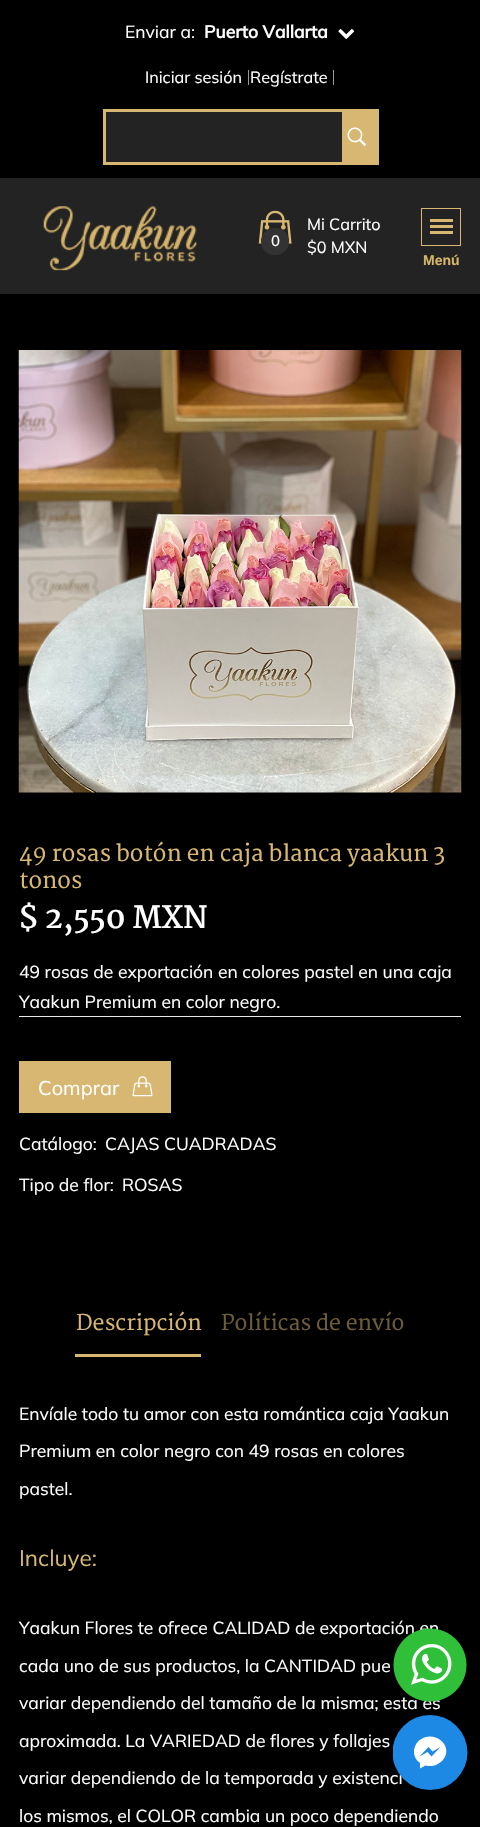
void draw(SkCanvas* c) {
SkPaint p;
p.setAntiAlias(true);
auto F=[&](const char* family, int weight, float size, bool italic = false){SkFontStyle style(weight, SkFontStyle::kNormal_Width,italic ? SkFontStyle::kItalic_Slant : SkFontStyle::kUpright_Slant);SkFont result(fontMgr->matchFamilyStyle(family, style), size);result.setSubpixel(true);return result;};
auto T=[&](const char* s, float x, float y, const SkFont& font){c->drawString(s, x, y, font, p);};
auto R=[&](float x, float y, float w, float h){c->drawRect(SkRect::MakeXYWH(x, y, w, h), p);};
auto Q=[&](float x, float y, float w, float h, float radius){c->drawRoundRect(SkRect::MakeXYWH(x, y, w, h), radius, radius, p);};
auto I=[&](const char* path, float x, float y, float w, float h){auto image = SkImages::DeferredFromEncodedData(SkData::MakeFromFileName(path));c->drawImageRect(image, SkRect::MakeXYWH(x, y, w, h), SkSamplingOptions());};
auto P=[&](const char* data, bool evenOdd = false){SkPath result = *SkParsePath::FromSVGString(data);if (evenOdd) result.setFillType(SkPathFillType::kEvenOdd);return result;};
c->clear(0xff000000);
auto f1 = F("Mulish",400,17.5);
p.setColor(0xffffffff);
T("Enviar a:",125,38,f1);
auto f2 = F("Mulish",700,17.5);
T("Puerto Vallarta",204,38,f2);
I("1.png",338,29,17,10);
auto f3 = F("Mulish",400,16.25);
T("Iniciar sesión",145,83,f3);
p.setColor(0xff999999);
R(248,70,1,15);
p.setColor(0xffffffff);
T("Regístrate",250,83,f3);
p.setColor(0xff999999);
R(333,70,1,15);
p.setColor(0xff232323);
c->drawRect(SkRect::MakeXYWH(104.5,110.5,239,53),p);
p.setStroke(true);
p.setStrokeWidth(3);
p.setColor(0xffd7b771);
c->drawRect(SkRect::MakeXYWH(104.5,110.5,239,53),p);
p.setStroke(false);
R(345,109,34,56);
I("2.png",347,127,20,20);
p.setColor(0xff232323);
R(0,178,480,116);
I("3.png",43,206,154,65);
I("4.png",258,210,34,34);
p.setColor(0xff333333);
Q(261,228,28,27,13.5);
auto f4 = F("Mulish",500,15);
p.setColor(0xffffffff);
T("0",271,246,f4);
T("Mi Carrito",307,230,f3);
T("$0 MXN",307,253,f3);
p.setStroke(true);
p.setStrokeWidth(1);
p.setColor(0xffd7b771);
c->drawRect(SkRect::MakeXYWH(421.5,208.5,39,37),p);
p.setStroke(false);
R(430,219,23,3);
R(430,225,23,3);
R(430,231,23,3);
auto f5 = F("Liberation Sans",700,14);
p.setColor(0xffd6b46a);
T("Menú",423,265,f5);
I("5.png",18,350,444,443);
auto f6 = F("Martel",600,22.5);
p.setColor(0xffd7b771);
T("49 rosas botón en caja blanca yaakun 3",19,861,f6);
T("tonos",19,888,f6);
auto f7 = F("Martel",700,30);
p.setColor(0xffffffff);
T("$ 2,550 MXN",19,928,f7);
T("49 rosas de exportación en colores pastel en una caja",19,978,f1);
T("Yaakun Premium en color negro.",19,1008,f1);
p.setColor(0xffebebeb);
R(19,1016,442,1);
p.setColor(0xffd7b771);
R(19,1061,152,52);
auto f8 = F("Mulish",400,20);
p.setColor(0xffffffff);
T("Comprar",38,1095,f8);
I("6.png",132,1076,21,21);
T("Catálogo:",19,1150,f1);
T("CAJAS CUADRADAS",105,1150,f1);
T("Tipo de flor:",19,1191,f1);
T("ROSAS",122,1191,f1);
p.setColor(0xffd7b771);
R(75,1354,126,3);
auto f9 = F("Martel",600,21.25);
T("Descripción",76,1330,f9);
p.setColor(0xff6c5c39);
T("Políticas de envío",221,1330,f9);
p.setColor(0xffffffff);
T("Envíale todo tu amor con esta romántica caja Yaakun",19,1420,f1);
T("Premium en color negro con 49 rosas en colores",19,1457,f1);
T("pastel.",19,1495,f1);
auto f10 = F("Mulish",400,22.5);
p.setColor(0xffd7b771);
T("Incluye:",19,1566,f10);
p.setColor(0xffffffff);
T("Yaakun Flores te ofrece CALIDAD de exportación en",19,1634,f1);
T("cada uno de sus productos, la CANTIDAD pue",19,1672,f1);
T("variar dependiendo del tamaño de la misma; esta es",19,1709,f1);
T("aproximada. La VARIEDAD de flores y follajes",19,1747,f1);
T("variar dependiendo de la temporada y existenci",19,1784,f1);
T("los mismos, el COLOR cambia un poco dependiendo",19,1822,f1);
I("7.png",393,1628,74,74);
c->save();
c->clipRect(SkRect::MakeXYWH(393,1715,75,75));
p.setColor(0xff1e88e5);
c->drawCircle(430,1752.5,37.5,p);
c->restore();
p.setColor(0xffffffff);
c->drawPath(P("M430 1736.5c-14.5 0-22 17.5-10 26.5v5.5l5.5-3c14.5 4 28.5-13 16-24.5c-3-3-7.5-4.5-11.5-4.5z"),p);
p.setColor(0xff1e88e5);
c->drawPath(P("M431.5 1756.5l-4-4.5l-8 4.5l9-9.5l4 4.5l8-4.5z"),p);
}
